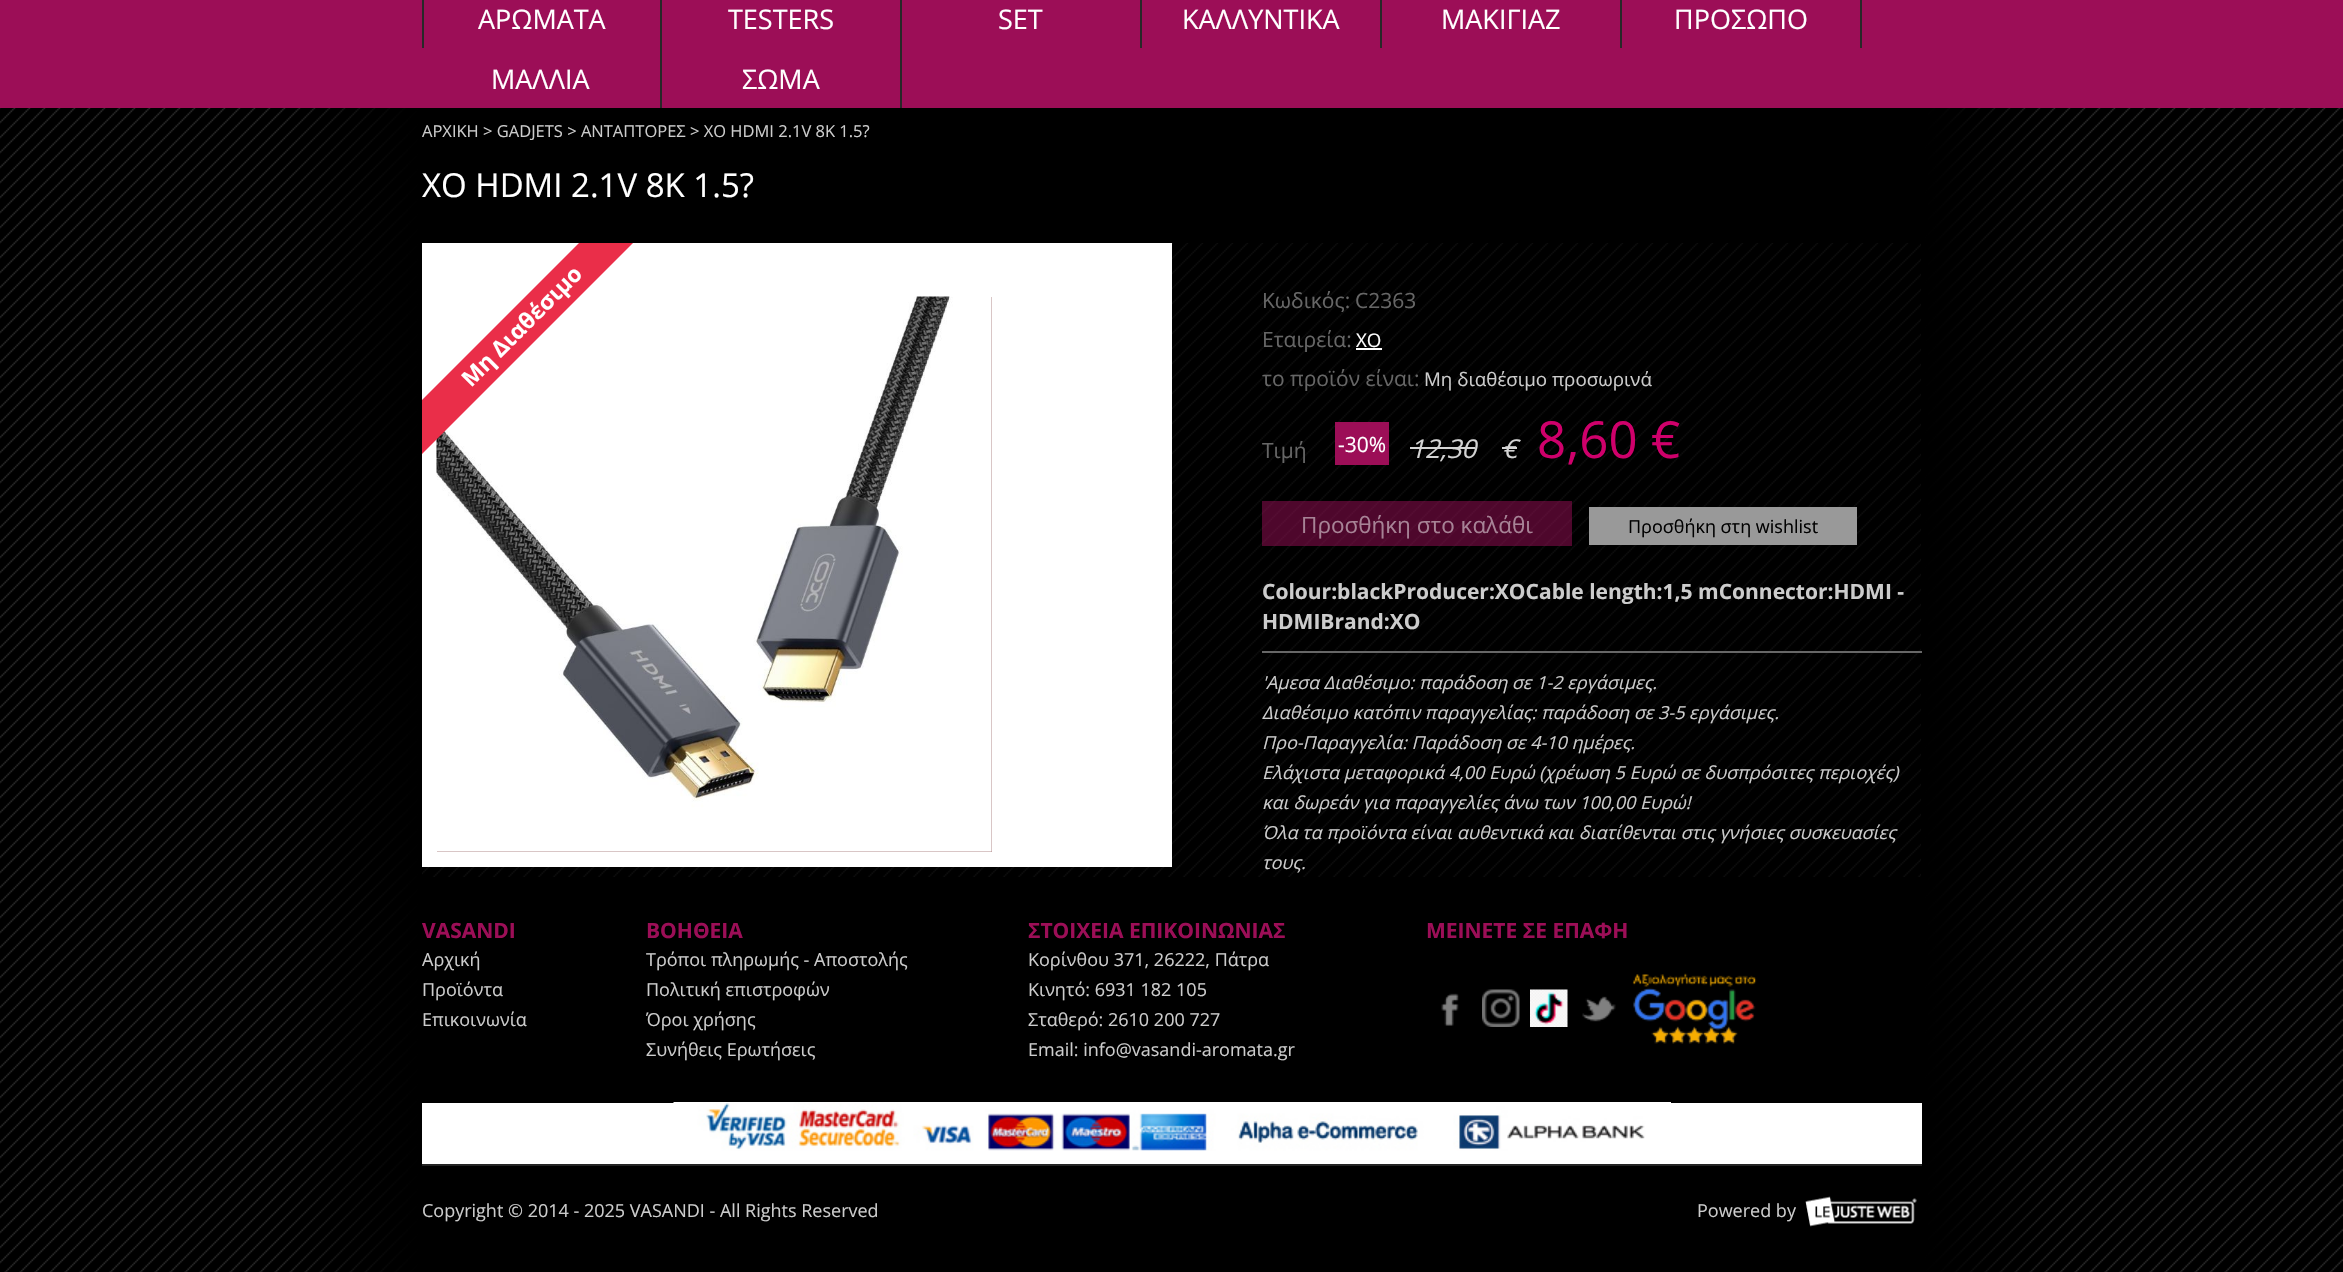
void draw(SkCanvas* c) {
SkPaint p;
p.setAntiAlias(true);
auto F=[&](const char* family, int weight, float size, bool italic = false){SkFontStyle style(weight, SkFontStyle::kNormal_Width,italic ? SkFontStyle::kItalic_Slant : SkFontStyle::kUpright_Slant);SkFont result(fontMgr->matchFamilyStyle(family, style), size);result.setSubpixel(true);return result;};
auto T=[&](const char* s, float x, float y, const SkFont& font){c->drawString(s, x, y, font, p);};
auto R=[&](float x, float y, float w, float h){c->drawRect(SkRect::MakeXYWH(x, y, w, h), p);};
auto I=[&](const char* path, float x, float y, float w, float h){auto image = SkImages::DeferredFromEncodedData(SkData::MakeFromFileName(path));c->drawImageRect(image, SkRect::MakeXYWH(x, y, w, h), SkSamplingOptions());};
auto P=[&](const char* data, bool evenOdd = false){SkPath result = *SkParsePath::FromSVGString(data);if (evenOdd) result.setFillType(SkPathFillType::kEvenOdd);return result;};
c->clear(0xffffffff);
I("1.png",0,108,2343,1164);
p.setColor(0xff9c0e57);
R(0,0,2343,108);
p.setColor(0xff282828);
R(660,0,2,108);
R(422,0,2,48);
auto f1 = F("Open Sans",400,27);
p.setColor(0xffffffff);
T("ΑΡΩΜΑΤΑ",478,29,f1);
p.setColor(0xff282828);
R(900,0,2,108);
p.setColor(0xffffffff);
T("TESTERS",728,29,f1);
p.setColor(0xff282828);
R(1140,0,2,48);
p.setColor(0xffffffff);
T("SET",998,29,f1);
p.setColor(0xff282828);
R(1380,0,2,48);
p.setColor(0xffffffff);
T("ΚΑΛΛΥΝΤΙΚΑ",1182,29,f1);
p.setColor(0xff282828);
R(1620,0,2,48);
p.setColor(0xffffffff);
T("ΜΑΚΙΓΙΑΖ",1441,29,f1);
p.setColor(0xff282828);
R(1860,0,2,48);
p.setColor(0xffffffff);
T("ΠΡΟΣΩΠΟ",1674,29,f1);
T("ΜΑΛΛΙΑ",491,89,f1);
T("ΣΩΜΑ",742,89,f1);
auto f2 = F("Open Sans",400,16.5);
p.setColor(0xffcccccc);
T("ΑΡΧΙΚΗ > GADJETS > ΑΝΤΑΠΤΟΡΕΣ > XO HDMI 2.1V 8K 1.5?",422,137,f2);
auto f3 = F("Open Sans",400,33);
p.setColor(0xffffffff);
T("XO HDMI 2.1V 8K 1.5?",422,197,f3);
I("2.png",422,243,1499,634);
R(422,243,750,624);
p.setColor(0xffb38c8c);
R(437,297,555,555);
I("3.png",436,296,556,556);
c->save();
c->clipRect(SkRect::MakeXYWH(422,243,750,624));
p.setColor(0xffea2e49);
c->drawPath(P("M318 504l382-382l27 27l-382 382z"),p);
c->restore();
auto f4 = F("Open Sans",700,22.5);
p.setColor(0xffffffff);
c->save();
c->rotate(-45,471,388);
T("Μη Διαθέσιμο",471,388,f4);
c->restore();
auto f5 = F("Open Sans",400,21);
p.setColor(0xff666666);
T("Κωδικός:",1262,308,f5);
T("C2363",1355,308,f5);
T("Εταιρεία:",1262,347,f5);
auto f6 = F("Open Sans",400,18.75);
p.setColor(0xffffffff);
T("XO",1356,347,f6);
R(1356,348,26,2);
p.setColor(0xff666666);
T("το προϊόν είναι:",1262,386,f5);
p.setColor(0xffcccccc);
T("Μη διαθέσιμο προσωρινά",1424,386,f6);
p.setColor(0xff666666);
T("Τιμή",1262,458,f5);
p.setColor(0xff9c0e57);
R(1335,422,54,43);
p.setColor(0xffffffff);
T("-30%",1338,452,f5);
auto f7 = F("Open Sans",400,26,true);
p.setColor(0xffd4d4d4);
T("12,30",1410,458,f7);
R(1410,447,65,2);
T("€",1502,458,f7);
R(1502,447,15,2);
auto f8 = F("Open Sans",400,51);
p.setColor(0xffcf006b);
T("8,60 €",1537,458,f8);
p.setColor(0x809c0e57);
R(1262,501,310,45);
auto f9 = F("Open Sans",400,22.5);
p.setColor(0xffa78396);
T("Προσθήκη στο καλάθι",1301,533,f9);
p.setColor(0xff999999);
R(1589,507,268,38);
auto f10 = F("Open Sans",400,18);
p.setColor(0xff000000);
T("Προσθήκη στη wishlist",1628,533,f10);
auto f11 = F("Open Sans",700,21);
p.setColor(0xffcccccc);
T("Colour:blackProducer:XOCable length:1,5 mConnector:HDMI -",1262,599,f11);
T("HDMIBrand:XO",1262,629,f11);
p.setColor(0xff676767);
R(1262,651,660,2);
auto f12 = F("Open Sans",400,18,true);
p.setColor(0xffcccccc);
T("'Aμεσα Διαθέσιμο: παράδοση σε 1-2 εργάσιμες.",1262,689,f12);
T("Διαθέσιμο κατόπιν παραγγελίας: παράδοση σε 3-5 εργάσιμες.",1262,719,f12);
T("Προ-Παραγγελία: Παράδοση σε 4-10 ημέρες.",1262,749,f12);
T("Ελάχιστα μεταφορικά 4,00 Ευρώ (χρέωση 5 Ευρώ σε δυσπρόσιτες περιοχές)",1262,779,f12);
T("και δωρεάν για παραγγελίες άνω των 100,00 Ευρώ!",1262,809,f12);
T("Όλα τα προϊόντα είναι αυθεντικά και διατίθενται στις γνήσιες συσκευασίες",1262,839,f12);
T("τους.",1262,869,f12);
p.setColor(0xff9c0e57);
T("VASANDI",422,938,f11);
p.setColor(0xffcccccc);
T("Αρχική",422,966,f10);
T("Προϊόντα",422,996,f10);
T("Επικοινωνία",422,1026,f10);
p.setColor(0xff9c0e57);
T("ΒΟΗΘΕΙΑ",646,938,f11);
p.setColor(0xffcccccc);
T("Τρόποι πληρωμής - Αποστολής",646,966,f10);
T("Πολιτική επιστροφών",646,996,f10);
T("Όροι χρήσης",646,1026,f10);
T("Συνήθεις Ερωτήσεις",646,1056,f10);
p.setColor(0xff9c0e57);
T("ΣΤΟΙΧΕΙΑ ΕΠΙΚΟΙΝΩΝΙΑΣ",1028,938,f11);
p.setColor(0xffcccccc);
T("Κορίνθου 371, 26222, Πάτρα",1028,966,f10);
T("Κινητό: 6931 182 105",1028,996,f10);
T("Σταθερό: 2610 200 727",1028,1026,f10);
T("Email: info@vasandi-aromata.gr",1028,1056,f10);
p.setColor(0xff9c0e57);
T("ΜΕΙΝΕΤΕ ΣΕ ΕΠΑΦΗ",1426,938,f11);
I("4.png",1441,993,18,33);
I("5.png",1482,989,38,38);
I("6.png",1530,989,38,38);
I("7.png",1582,996,34,26);
I("8.png",1632,973,125,71);
p.setColor(0xffffffff);
R(422,1103,1500,61);
I("9.png",673,1102,998,49);
p.setColor(0xff232323);
R(422,1164,1500,2);
p.setColor(0xffcccccc);
T("Copyright © 2014 - 2025 VASANDI - All Rights Reserved",422,1217,f10);
T("Powered by",1697,1217,f10);
I("10.png",1805,1196,112,31);
}
